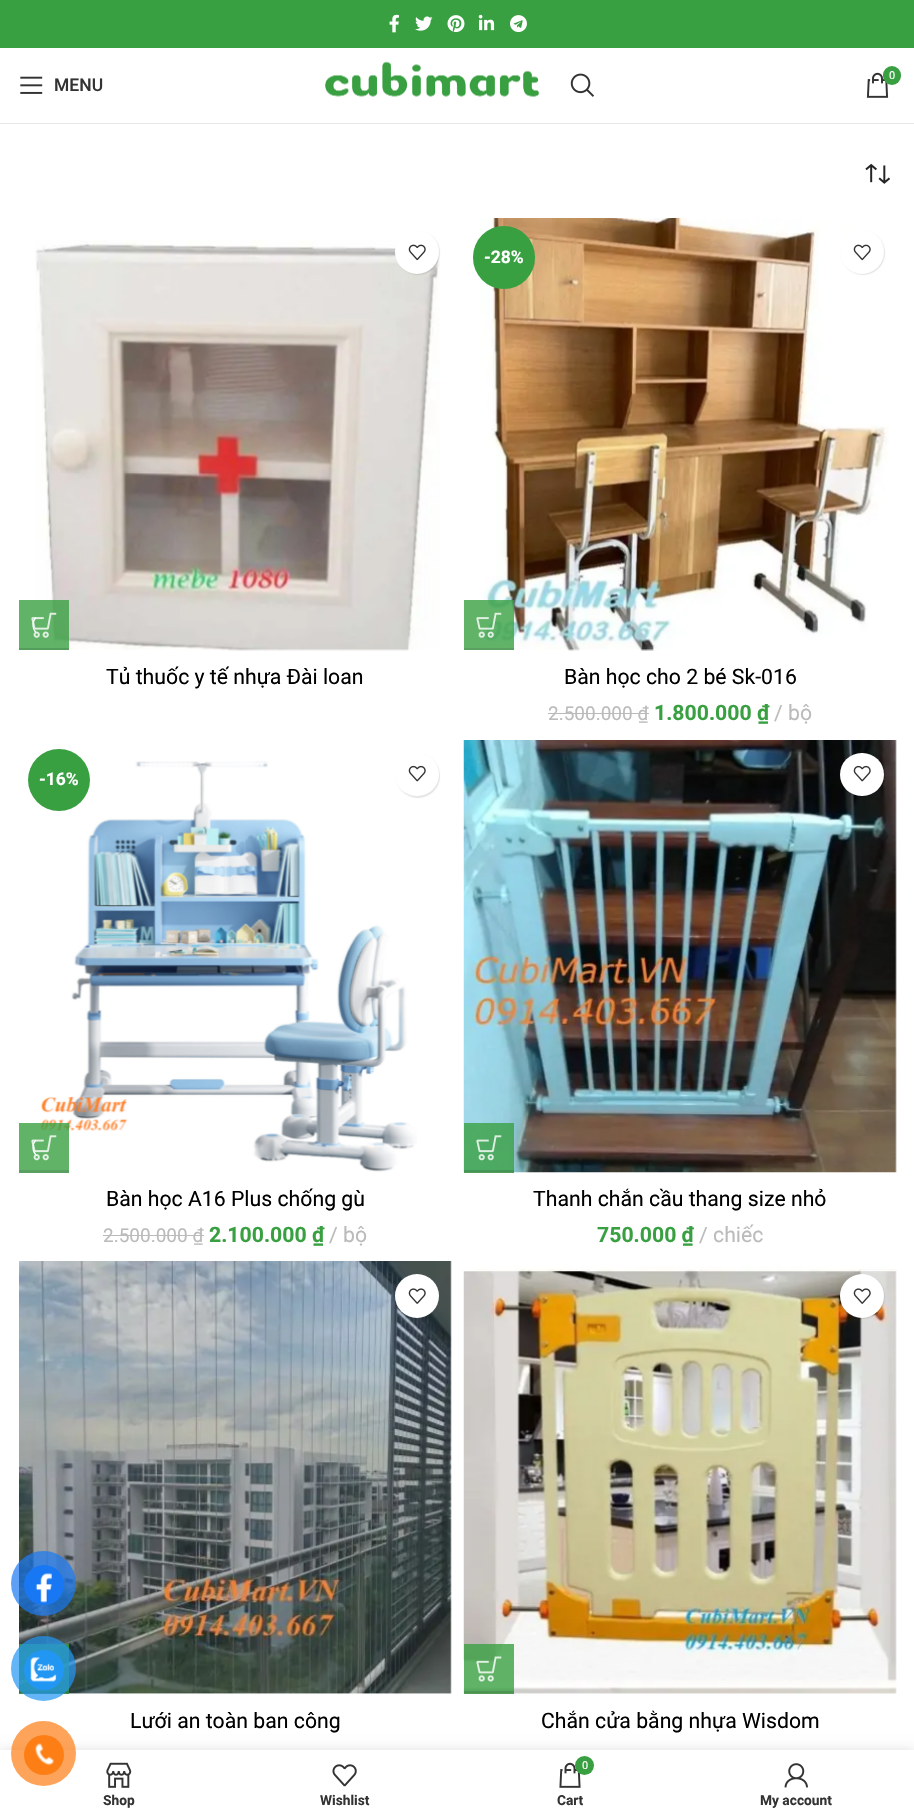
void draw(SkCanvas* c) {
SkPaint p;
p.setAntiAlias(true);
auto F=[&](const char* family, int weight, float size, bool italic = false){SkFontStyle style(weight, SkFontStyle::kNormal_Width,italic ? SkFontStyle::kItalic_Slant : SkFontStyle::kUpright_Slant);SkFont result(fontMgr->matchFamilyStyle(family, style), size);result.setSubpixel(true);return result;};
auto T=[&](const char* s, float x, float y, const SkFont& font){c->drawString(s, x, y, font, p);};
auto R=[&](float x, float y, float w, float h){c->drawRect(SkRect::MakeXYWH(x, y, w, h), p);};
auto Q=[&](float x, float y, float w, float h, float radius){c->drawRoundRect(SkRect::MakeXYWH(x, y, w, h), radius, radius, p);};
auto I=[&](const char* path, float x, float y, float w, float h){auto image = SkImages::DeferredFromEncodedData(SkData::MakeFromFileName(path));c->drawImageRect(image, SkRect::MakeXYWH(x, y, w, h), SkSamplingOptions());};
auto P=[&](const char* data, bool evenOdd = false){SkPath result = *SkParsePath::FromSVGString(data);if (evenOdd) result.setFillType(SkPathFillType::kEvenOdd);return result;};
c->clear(0xffffffff);
p.setColor(0xff39a042);
R(0,0,914,48);
I("1.png",389,14,10,19);
I("2.png",415,16,18,15);
I("3.png",447,15,18,18);
I("4.png",478,14,17,17);
I("5.png",510,15,17,18);
p.setColor(0xffe8e8e8);
R(0,123,914,1);
I("6.png",325,61,214,44);
I("7.png",570,73,24,24);
I("8.png",866,72,23,26);
p.setColor(0xff39a042);
Q(883,66,18,19,9);
auto f1 = F("Roboto",400,11);
p.setColor(0xffffffff);
T("0",889,79,f1);
I("9.png",20,76,23,18);
auto f2 = F("Roboto",500,17.5);
p.setColor(0xff333333);
T("MENU",54,91,f2);
I("10.png",865,163,25,21);
I("12.png",35,240,405,411);
p.setColor(0x1a000000);
p.setMaskFilter(SkMaskFilter::MakeBlur(kNormal_SkBlurStyle, .5));
c->drawRoundRect(SkRect::MakeXYWH(396,231,44,44),22,22,p);
p.setMaskFilter(nullptr);
p.setColor(0xffffffff);
c->drawCircle(417,252,22,p);
I("11.png",408,244,18,17);
p.setColor(0xcc39a042);
R(19,600,50,48);
p.setColor(0xff559d5b);
R(19,648,50,2);
I("13.png",31,612,26,26);
p.setStroke(true);
p.setStrokeWidth(1.2);
p.setColor(0xffffffff);
c->drawPath(P("M36 632.5c-4-4-4-11 0-15"),p);
auto f3 = F("Roboto",400,21.25);
p.setStroke(false);
p.setColor(0xff000000);
T("Tủ thuốc y tế nhựa Đài loan",106,684,f3);
I("14.png",478,218,411,433);
p.setColor(0xff39a042);
Q(473,226,62,63,31);
auto f4 = F("Roboto",700,17.5);
p.setColor(0xffffffff);
T("-28%",484,263,f4);
p.setColor(0x1a000000);
p.setMaskFilter(SkMaskFilter::MakeBlur(kNormal_SkBlurStyle, .5));
c->drawRoundRect(SkRect::MakeXYWH(841,231,44,44),22,22,p);
p.setMaskFilter(nullptr);
p.setColor(0xffffffff);
c->drawCircle(862,252,22,p);
I("11.png",853,244,18,17);
p.setColor(0xcc39a042);
R(464,600,50,48);
p.setColor(0xff5aa060);
R(464,648,50,2);
I("15.png",476,612,26,26);
p.setColor(0xff000000);
T("Bàn học cho 2 bé Sk-016",564,684,f3);
auto f5 = F("Roboto",400,19);
p.setColor(0xffbbbbbb);
T("2.500.000 ₫",548,720,f5);
R(548,713,101,1);
auto f6 = F("Roboto",700,21.25);
p.setColor(0xff39a042);
T("1.800.000 ₫",654,720,f6);
p.setColor(0xffbbbbbb);
T("/ bộ",774,720,f3);
I("16.png",40,761,377,411);
p.setColor(0xff39a042);
c->drawCircle(59,780,31,p);
p.setColor(0xffffffff);
T("-16%",39,785,f4);
p.setColor(0x1a000000);
p.setMaskFilter(SkMaskFilter::MakeBlur(kNormal_SkBlurStyle, .5));
c->drawRoundRect(SkRect::MakeXYWH(396,754,44,44),22,22,p);
p.setMaskFilter(nullptr);
p.setColor(0xffffffff);
Q(395,753,44,43,21.5);
I("17.png",408,765,18,17);
p.setColor(0xcc39a042);
R(19,1123,50,47);
p.setColor(0xff5aa060);
R(19,1170,50,3);
I("18.png",31,1135,26,26);
p.setStroke(true);
p.setColor(0xffffffff);
c->drawPath(P("M36 1155c-4-4-4-11 0-15"),p);
p.setStroke(false);
p.setColor(0xff000000);
T("Bàn học A16 Plus chống gù",106,1206,f3);
p.setColor(0xffbbbbbb);
T("2.500.000 ₫",103,1242,f5);
R(103,1235,101,1);
p.setColor(0xff39a042);
T("2.100.000 ₫",209,1242,f6);
p.setColor(0xffbbbbbb);
T("/ bộ",329,1242,f3);
I("19.png",463,740,434,433);
p.setColor(0x1a000000);
p.setMaskFilter(SkMaskFilter::MakeBlur(kNormal_SkBlurStyle, .5));
c->drawRoundRect(SkRect::MakeXYWH(841,754,44,44),22,22,p);
p.setMaskFilter(nullptr);
p.setColor(0xffffffff);
Q(840,753,44,43,21.5);
I("17.png",853,765,18,17);
p.setColor(0xcc39a042);
R(464,1123,50,50);
p.setColor(0x1f000000);
R(464,1170,50,3);
I("20.png",476,1135,26,26);
p.setColor(0xff000000);
T("Thanh chắn cầu thang size nhỏ",533,1206,f3);
p.setColor(0xff39a042);
T("750.000 ₫",597,1242,f6);
p.setColor(0xffbbbbbb);
T("/ chiếc",699,1242,f3);
I("21.png",19,1261,433,433);
p.setColor(0xffffffff);
c->drawCircle(417,1296,22,p);
I("22.png",408,1288,18,16);
p.setColor(0xcc39a042);
R(19,1644,50,50);
p.setColor(0x1f000000);
R(19,1691,50,3);
p.setColor(0xff000000);
T("Lưới an toàn ban công",130,1728,f3);
I("23.png",463,1266,434,428);
p.setColor(0x1a000000);
p.setMaskFilter(SkMaskFilter::MakeBlur(kNormal_SkBlurStyle, .5));
c->drawRoundRect(SkRect::MakeXYWH(841,1275,44,44),22,22,p);
p.setMaskFilter(nullptr);
p.setColor(0xffffffff);
c->drawCircle(862,1296,22,p);
I("22.png",853,1288,18,16);
p.setColor(0xcc39a042);
R(464,1644,50,50);
p.setColor(0x1f000000);
R(464,1691,50,3);
I("24.png",476,1656,26,26);
p.setColor(0xff000000);
T("Chắn cửa bằng nhựa Wisdom",541,1728,f3);
p.setColor(0xb31877f2);
c->drawCircle(43.5,1583.5,32.5,p);
p.setColor(0xff1877f2);
c->drawCircle(44,1585,20,p);
I("25.png",35,1573,17,30);
p.setColor(0xb32196f3);
c->drawCircle(43.5,1668.5,32.5,p);
p.setColor(0xff2196f3);
c->drawCircle(44,1670,20,p);
I("26.png",30,1657,27,25);
p.setColor(0x1f000000);
p.setMaskFilter(SkMaskFilter::MakeBlur(kNormal_SkBlurStyle, 5.5));
c->drawRect(SkRect::MakeXYWH(0,1750,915,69),p);
p.setMaskFilter(nullptr);
p.setColor(0xffffffff);
R(0,1750,914,68);
p.setColor(0xb3fd7e14);
c->drawCircle(43.5,1753.5,32.5,p);
p.setColor(0xfffd7e14);
c->drawCircle(44,1755,20,p);
I("27.png",34,1743,20,23);
I("28.png",106,1762,26,26);
auto f7 = F("Roboto",700,13.75);
p.setColor(0xff333333);
T("Shop",103,1805,f7);
I("29.png",332,1764,25,23);
T("Wishlist",320,1805,f7);
I("30.png",559,1762,22,26);
p.setColor(0xff39a042);
c->drawCircle(584.5,1765.5,9.5,p);
p.setColor(0xffffffff);
T("0",582,1769,f1);
p.setColor(0xff333333);
T("Cart",557,1805,f7);
I("31.png",784,1763,24,25);
T("My account",760,1805,f7);
}
